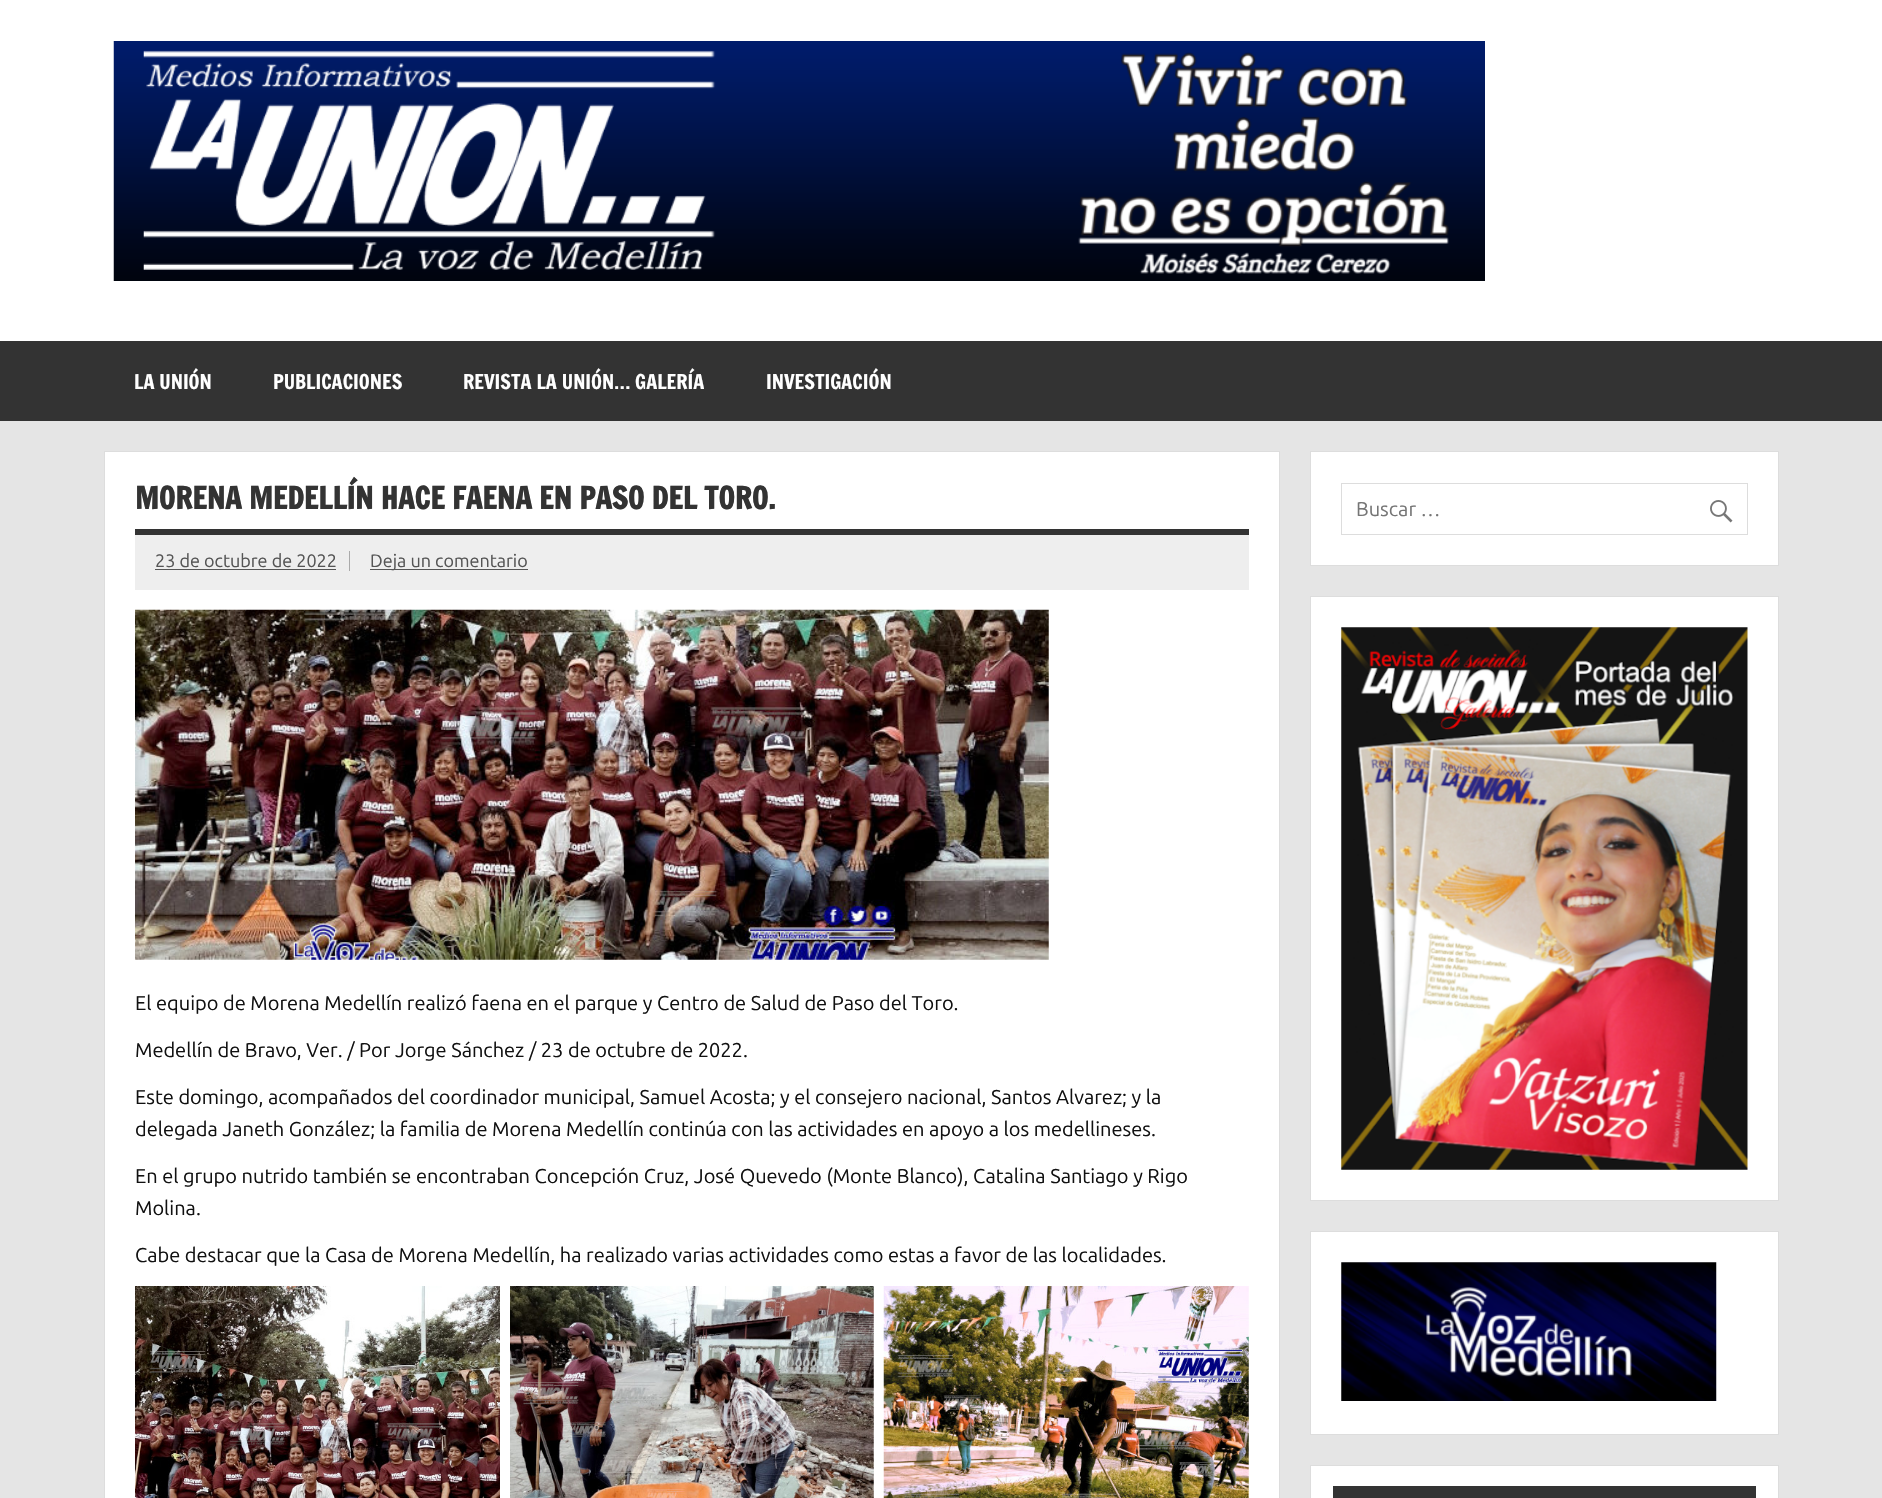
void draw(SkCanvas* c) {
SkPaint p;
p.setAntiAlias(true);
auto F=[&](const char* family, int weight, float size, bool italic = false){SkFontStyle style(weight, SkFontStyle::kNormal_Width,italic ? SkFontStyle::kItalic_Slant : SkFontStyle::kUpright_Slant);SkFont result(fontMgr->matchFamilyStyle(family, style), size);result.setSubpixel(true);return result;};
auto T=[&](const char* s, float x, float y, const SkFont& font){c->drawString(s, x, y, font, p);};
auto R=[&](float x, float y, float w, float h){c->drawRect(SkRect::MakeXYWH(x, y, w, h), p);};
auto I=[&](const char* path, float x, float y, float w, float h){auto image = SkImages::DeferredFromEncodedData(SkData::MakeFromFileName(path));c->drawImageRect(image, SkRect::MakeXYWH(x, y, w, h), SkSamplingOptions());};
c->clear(0xffe5e5e5);
p.setColor(0xffffffff);
R(0,0,1882,341);
I("1.png",113,41,1372,240);
p.setColor(0xff333333);
R(0,341,1882,80);
auto f1 = F("Francois One",400,20);
p.setColor(0xffffffff);
T("LA UNIÓN",134,389,f1);
T("PUBLICACIONES",273,389,f1);
T("REVISTA LA UNIÓN… GALERÍA",463,389,f1);
T("INVESTIGACIÓN",766,389,f1);
c->drawRect(SkRect::MakeXYWH(104.5,451.5,1175,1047),p);
p.setStroke(true);
p.setStrokeWidth(1);
p.setColor(0xffdddddd);
c->drawRect(SkRect::MakeXYWH(104.5,451.5,1175,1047),p);
p.setStroke(false);
p.setColor(0xff333333);
R(135,529,1114,6);
auto f2 = F("Francois One",700,30);
T("MORENA MEDELLÍN HACE FAENA EN PASO DEL TORO.",135,509,f2);
p.setColor(0xffeeeeee);
R(135,535,1114,55);
auto f3 = F("Ubuntu",400,18);
p.setColor(0xff555555);
T("23 de octubre de 2022",155,567,f3);
p.setColor(0xffaaaaaa);
R(349,551,1,20);
p.setColor(0xff555555);
R(155,569,181,1);
R(370,569,158,1);
T("Deja un comentario",370,567,f3);
I("2.png",135,609,914,351);
auto f4 = F("Ubuntu",400,20);
p.setColor(0xff111111);
T("El equipo de Morena Medellín realizó faena en el parque y Centro de Salud de Paso del Toro.",135,1010,f4);
T("Medellín de Bravo, Ver. / Por Jorge Sánchez / 23 de octubre de 2022.",135,1057,f4);
T("Este domingo, acompañados del coordinador municipal, Samuel Acosta; y el consejero nacional, Santos Alvarez; y la",135,1104,f4);
T("delegada Janeth González; la familia de Morena Medellín continúa con las actividades en apoyo a los medellineses.",135,1136,f4);
T("En el grupo nutrido también se encontraban Concepción Cruz, José Quevedo (Monte Blanco), Catalina Santiago y Rigo",135,1183,f4);
T("Molina.",135,1215,f4);
T("Cabe destacar que la Casa de Morena Medellín, ha realizado varias actividades como estas a favor de las localidades.",135,1262,f4);
I("3.png",135,1286,365,212);
I("4.png",510,1286,364,212);
I("5.png",883,1286,366,212);
p.setColor(0xffffffff);
c->drawRect(SkRect::MakeXYWH(1310.5,451.5,468,114),p);
p.setStroke(true);
p.setColor(0xffdddddd);
c->drawRect(SkRect::MakeXYWH(1310.5,451.5,468,114),p);
c->drawRect(SkRect::MakeXYWH(1341.5,483.5,406,51),p);
p.setStroke(false);
p.setColor(0xff757575);
T("Buscar …",1356,516,f4);
I("6.png",1710,500,23,23);
p.setColor(0xffffffff);
c->drawRect(SkRect::MakeXYWH(1310.5,596.5,468,604),p);
p.setStroke(true);
p.setColor(0xffdddddd);
c->drawRect(SkRect::MakeXYWH(1310.5,596.5,468,604),p);
I("7.png",1341,627,407,543);
p.setStroke(false);
p.setColor(0xffffffff);
c->drawRect(SkRect::MakeXYWH(1310.5,1231.5,468,203),p);
p.setStroke(true);
p.setColor(0xffdddddd);
c->drawRect(SkRect::MakeXYWH(1310.5,1231.5,468,203),p);
I("8.png",1341,1262,376,139);
p.setStroke(false);
p.setColor(0xffffffff);
c->drawRect(SkRect::MakeXYWH(1310.5,1465.5,468,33),p);
p.setStroke(true);
p.setColor(0xffdddddd);
c->drawRect(SkRect::MakeXYWH(1310.5,1465.5,468,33),p);
p.setStroke(false);
p.setColor(0xff333333);
R(1333,1486,423,12);
}
